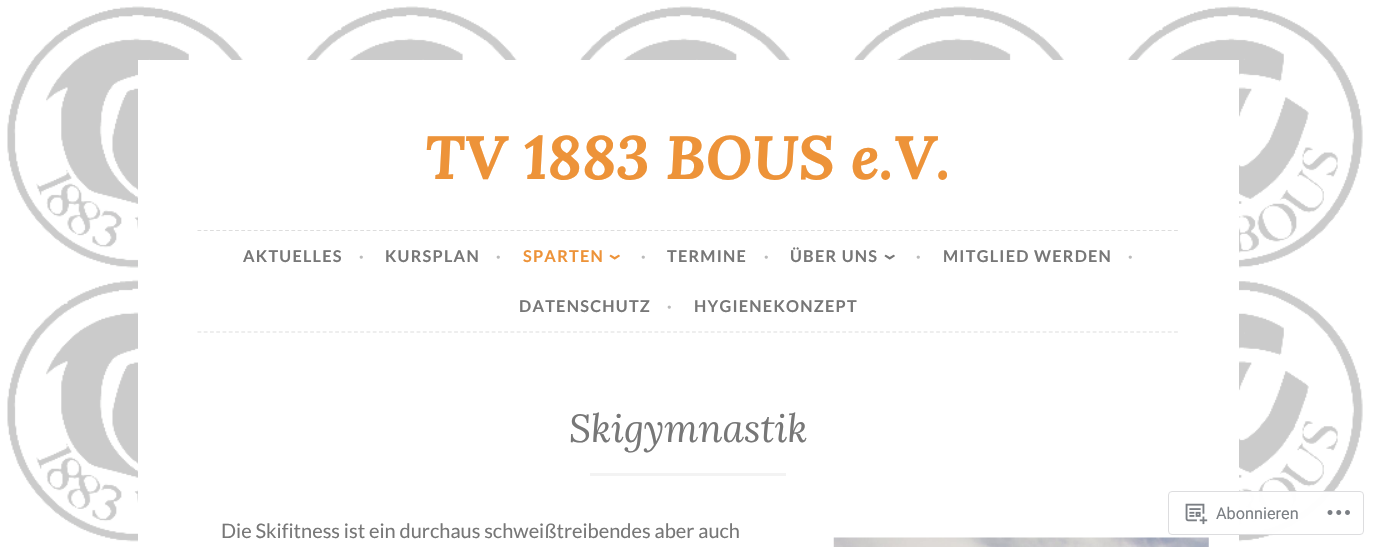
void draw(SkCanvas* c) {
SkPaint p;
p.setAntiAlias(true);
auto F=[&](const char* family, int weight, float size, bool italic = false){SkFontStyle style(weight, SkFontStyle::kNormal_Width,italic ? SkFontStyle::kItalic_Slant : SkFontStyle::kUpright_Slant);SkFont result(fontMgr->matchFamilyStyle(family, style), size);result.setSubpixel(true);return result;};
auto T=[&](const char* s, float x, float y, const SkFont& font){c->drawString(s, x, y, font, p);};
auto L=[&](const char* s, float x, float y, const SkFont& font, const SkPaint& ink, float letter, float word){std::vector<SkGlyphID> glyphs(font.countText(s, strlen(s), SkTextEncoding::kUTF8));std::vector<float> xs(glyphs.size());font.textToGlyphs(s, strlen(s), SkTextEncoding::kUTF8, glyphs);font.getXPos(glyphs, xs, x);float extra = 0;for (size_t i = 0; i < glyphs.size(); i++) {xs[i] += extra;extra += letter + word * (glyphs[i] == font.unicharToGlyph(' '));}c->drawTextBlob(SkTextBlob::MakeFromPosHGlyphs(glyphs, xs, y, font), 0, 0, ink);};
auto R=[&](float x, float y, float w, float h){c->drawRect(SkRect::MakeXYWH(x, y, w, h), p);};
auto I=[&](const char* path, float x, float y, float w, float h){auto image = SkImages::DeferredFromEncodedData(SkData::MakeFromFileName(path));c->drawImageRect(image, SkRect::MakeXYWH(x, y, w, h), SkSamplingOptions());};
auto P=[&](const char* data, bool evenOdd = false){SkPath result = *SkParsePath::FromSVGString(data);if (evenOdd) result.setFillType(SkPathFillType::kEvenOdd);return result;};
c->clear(0xffffffff);
I("1.png",0,0,1376,547);
p.setColor(0xffffffff);
R(138,60,1101,482);
auto f1 = F("Lora",700,61,true);
p.setColor(0xffed9339);
T("TV 1883 BOUS e.V.",425,179,f1);
p.setStroke(true);
p.setStrokeWidth(1.2);
p.setColor(0xffdddddd);
p.setPathEffect(SkDashPathEffect::Make({{3.75f,2.51f}}, 0));
c->drawPath(P("M197.5 230.5h981.5"),p);
p.setPathEffect(nullptr);
p.setPathEffect(SkDashPathEffect::Make({{3.75f,2.51f}}, 0));
c->drawPath(P("M197.5 332h981.5"),p);
p.setPathEffect(nullptr);
auto f2 = F("Lato",700,16.25);
p.setStroke(false);
p.setColor(0xff777777);
L("AKTUELLES",243,262,f2,p,1.25,0);
p.setColor(0xffbbbbbb);
L("·",359,262,f2,p,1.25,0);
p.setColor(0xff777777);
L("KURSPLAN",385,262,f2,p,1.25,0);
p.setColor(0xffbbbbbb);
L("·",496,262,f2,p,1.25,0);
p.setColor(0xffed9339);
L("SPARTEN",523,262,f2,p,1.25,0);
auto f3 = F("Lato",700,25);
c->save();
c->rotate(90,608,253);
L("›",608,253,f3,p,1.25,0);
c->restore();
p.setColor(0xffbbbbbb);
L("·",641,262,f2,p,1.25,0);
p.setColor(0xff777777);
L("TERMINE",667,262,f2,p,1.25,0);
p.setColor(0xffbbbbbb);
L("·",764,262,f2,p,1.25,0);
p.setColor(0xff777777);
L("ÜBER UNS",790,262,f2,p,1.25,0);
c->save();
c->rotate(90,883,253);
L("›",883,253,f3,p,1.25,0);
c->restore();
p.setColor(0xffbbbbbb);
L("·",916,262,f2,p,1.25,0);
p.setColor(0xff777777);
L("MITGLIED WERDEN",943,262,f2,p,1.25,0);
p.setColor(0xffbbbbbb);
L("·",1128,262,f2,p,1.25,0);
p.setColor(0xff777777);
L("DATENSCHUTZ",519,312,f2,p,1.25,0);
p.setColor(0xffbbbbbb);
L("·",667,312,f2,p,1.25,0);
p.setColor(0xff777777);
L("HYGIENEKONZEPT",694,312,f2,p,1.25,0);
auto f4 = F("Lora",400,39,true);
T("Skigymnastik",569,442,f4);
p.setColor(0xfff3f3f3);
R(590,473,196,3);
auto f5 = F("Lato",400,20);
p.setColor(0xff777777);
T("Die Skifitness ist ein durchaus schweißtreibendes aber auch",221,538,f5);
I("2.png",833,537,376,10);
p.setColor(0xfaffffff);
c->drawRoundRect(SkRect::MakeXYWH(1168.5,491.5,195,43),3.5,3.5,p);
p.setStroke(true);
p.setStrokeWidth(1);
p.setColor(0xffdddddf);
c->drawRoundRect(SkRect::MakeXYWH(1168.5,491.5,195,43),3.5,3.5,p);
I("3.png",1185,503,23,22);
auto f6 = F("Roboto",400,16.25);
p.setStroke(false);
p.setColor(0xff7b7f84);
T("Abonnieren",1216,519,f6);
I("4.png",1327,510,23,5);
}
